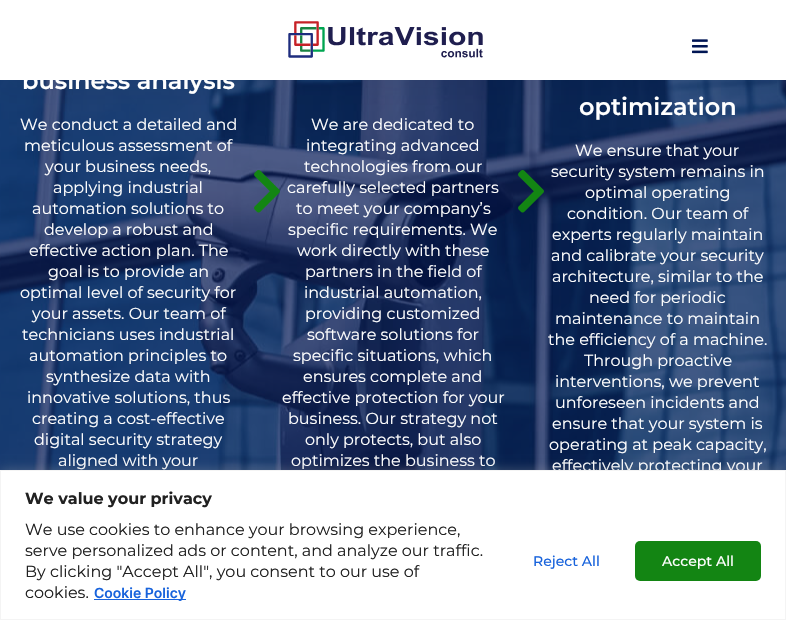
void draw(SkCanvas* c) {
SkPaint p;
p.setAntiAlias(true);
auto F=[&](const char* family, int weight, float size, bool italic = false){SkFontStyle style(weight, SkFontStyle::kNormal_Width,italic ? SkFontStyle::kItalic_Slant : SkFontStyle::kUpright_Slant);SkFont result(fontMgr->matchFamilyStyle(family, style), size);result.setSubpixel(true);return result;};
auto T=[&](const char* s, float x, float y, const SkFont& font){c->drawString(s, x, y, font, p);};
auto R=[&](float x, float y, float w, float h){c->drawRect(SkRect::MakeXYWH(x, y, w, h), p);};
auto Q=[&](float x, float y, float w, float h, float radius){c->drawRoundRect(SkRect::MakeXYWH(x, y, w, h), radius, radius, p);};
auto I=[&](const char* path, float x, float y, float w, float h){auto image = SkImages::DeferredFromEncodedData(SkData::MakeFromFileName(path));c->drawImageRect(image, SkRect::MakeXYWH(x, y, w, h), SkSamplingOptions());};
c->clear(0xffffffff);
I("3.png",0,80,786,390);
p.setColor(0x0a000000);
p.setMaskFilter(SkMaskFilter::MakeBlur(kNormal_SkBlurStyle, 12.5));
c->drawRect(SkRect::MakeXYWH(0,8,786,80),p);
p.setMaskFilter(nullptr);
p.setColor(0xffffffff);
R(0,0,786,80);
I("1.png",288,21,195,37);
I("2.png",692,39,16,15);
auto f1 = F("Montserrat",600,24);
T("business analysis",22,89,f1);
auto f2 = F("Montserrat",400,16);
T("We conduct a detailed and",20,130,f2);
T("meticulous assessment of",24,151,f2);
T("your business needs,",45,172,f2);
T("applying industrial",53,193,f2);
T("automation solutions to",32,214,f2);
T("develop a robust and",44,235,f2);
T("effective action plan. The",29,256,f2);
T("goal is to provide an",48,277,f2);
T("optimal level of security for",20,298,f2);
T("your assets. Our team of",32,319,f2);
T("technicians uses industrial",22,340,f2);
T("automation principles to",29,361,f2);
T("synthesize data with",46,382,f2);
T("innovative solutions, thus",27,403,f2);
T("creating a cost-effective",32,424,f2);
T("digital security strategy",34,445,f2);
T("aligned with your",58,466,f2);
I("4.png",254,170,26,43);
T("We are dedicated to",311,130,f2);
T("integrating advanced",306,151,f2);
T("technologies from our",304,172,f2);
T("carefully selected partners",287,193,f2);
T("to meet your company’s",296,214,f2);
T("specific requirements. We",288,235,f2);
T("work directly with these",297,256,f2);
T("partners in the field of",305,277,f2);
T("industrial automation,",304,298,f2);
T("providing customized",305,319,f2);
T("software solutions for",307,340,f2);
T("specific situations, which",293,361,f2);
T("ensures complete and",303,382,f2);
T("effective protection for your",282,403,f2);
T("business. Our strategy not",288,424,f2);
T("only protects, but also",305,445,f2);
T("optimizes the business to",291,466,f2);
I("5.png",518,170,26,43);
T("optimization",579,115,f1);
T("We ensure that your",575,156,f2);
T("security system remains in",551,177,f2);
T("optimal operating",585,198,f2);
T("condition. Our team of",567,219,f2);
T("experts regularly maintain",552,240,f2);
T("and calibrate your security",551,261,f2);
T("architecture, similar to the",552,282,f2);
T("need for periodic",589,303,f2);
T("maintenance to maintain",555,324,f2);
T("the efficiency of a machine.",548,345,f2);
T("Through proactive",584,366,f2);
T("interventions, we prevent",555,387,f2);
T("unforeseen incidents and",555,408,f2);
T("ensure that your system is",552,429,f2);
T("operating at peak capacity,",549,450,f2);
T("effectively protecting your",552,471,f2);
p.setColor(0x4dacabab);
p.setMaskFilter(SkMaskFilter::MakeBlur(kNormal_SkBlurStyle, 5));
c->drawRect(SkRect::MakeXYWH(0,469,786,150),p);
p.setMaskFilter(nullptr);
p.setColor(0xffffffff);
c->drawRect(SkRect::MakeXYWH(.5,470.5,785,149),p);
p.setStroke(true);
p.setStrokeWidth(1);
p.setColor(0xfff4f4f4);
c->drawRect(SkRect::MakeXYWH(.5,470.5,785,149),p);
auto f3 = F("Montserrat",700,16);
p.setStroke(false);
p.setColor(0xff212121);
T("We value your privacy",25,504,f3);
T("We use cookies to enhance your browsing experience,",25,535,f2);
T("serve personalized ads or content, and analyze our traffic.",25,556,f2);
T("By clicking \"Accept All\", you consent to our use of",25,577,f2);
T("cookies.",25,598,f2);
p.setColor(0xff1863dc);
R(94,599,92,1);
auto f4 = F("Inter",600,14);
T("Cookie Policy",94,598,f4);
auto f5 = F("Montserrat",500,14);
T("Reject All",533,566,f5);
p.setColor(0xff138513);
Q(635,541,126,40,5);
p.setColor(0xffffffff);
T("Accept All",662,566,f5);
}
